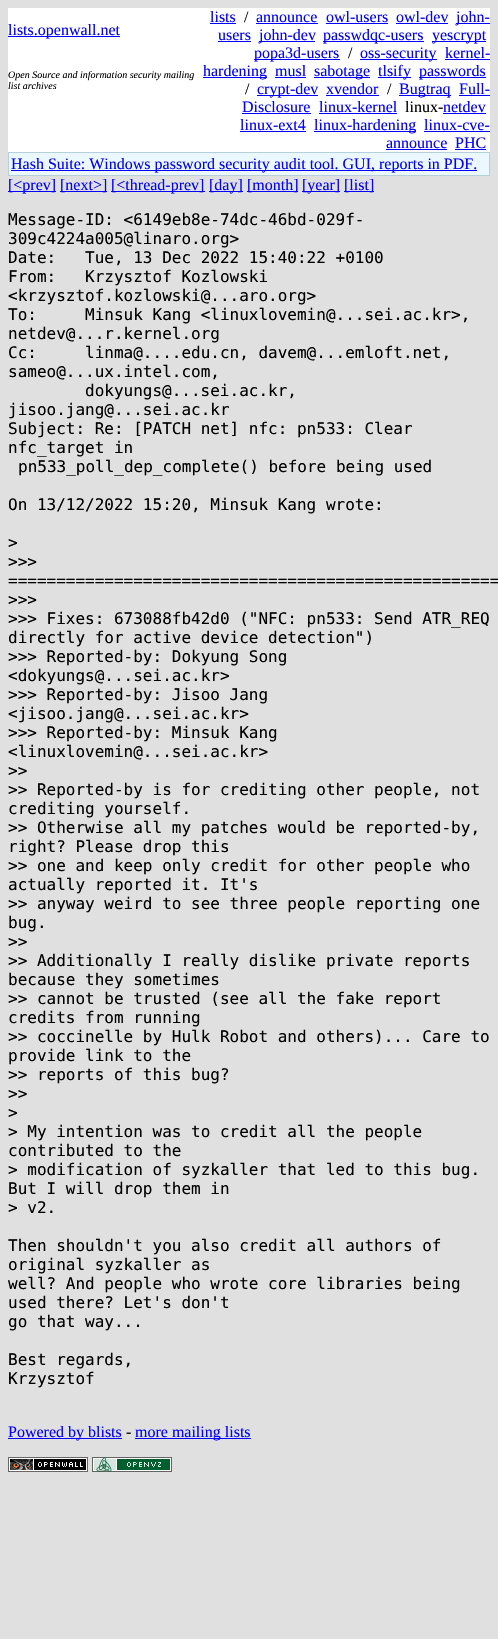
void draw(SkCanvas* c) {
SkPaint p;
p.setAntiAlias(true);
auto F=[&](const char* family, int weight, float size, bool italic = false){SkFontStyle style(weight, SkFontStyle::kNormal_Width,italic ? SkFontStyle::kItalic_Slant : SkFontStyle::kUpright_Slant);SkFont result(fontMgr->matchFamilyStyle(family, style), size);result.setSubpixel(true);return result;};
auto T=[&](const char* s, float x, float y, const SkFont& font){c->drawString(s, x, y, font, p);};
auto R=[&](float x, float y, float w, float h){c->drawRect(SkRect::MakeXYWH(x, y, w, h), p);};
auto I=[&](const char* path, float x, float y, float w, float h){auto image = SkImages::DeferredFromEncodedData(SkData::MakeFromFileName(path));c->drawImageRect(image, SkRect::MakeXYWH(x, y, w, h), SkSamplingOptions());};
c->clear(0xffe0e0e0);
p.setColor(0xffffffff);
R(8,8,482,144);
p.setColor(0xff0000ff);
R(8,36,112,1);
auto f1 = F("Liberation Serif",400,16);
T("lists.openwall.net",8,35,f1);
T("lists",210,22,f1);
R(210,23,26,1);
p.setColor(0xff000000);
T("/",244,22,f1);
p.setColor(0xff0000ff);
T("announce",256,22,f1);
R(256,23,62,1);
T("owl-users",326,22,f1);
R(326,23,62,1);
T("owl-dev",396,22,f1);
R(396,23,52,1);
R(456,23,34,1);
T("john-",456,22,f1);
T("users",218,40,f1);
R(218,41,33,1);
R(259,41,56,1);
T("john-dev",259,40,f1);
R(323,41,101,1);
T("passwdqc-users",323,40,f1);
R(432,41,54,1);
T("yescrypt",432,40,f1);
R(254,59,86,1);
T("popa3d-users",254,58,f1);
p.setColor(0xff000000);
T("/",348,58,f1);
p.setColor(0xff0000ff);
R(360,59,77,1);
T("oss-security",360,58,f1);
T("kernel-",445,58,f1);
R(445,59,45,1);
R(203,77,64,1);
T("hardening",203,76,f1);
T("musl",275,76,f1);
R(275,77,31,1);
R(314,77,56,1);
T("sabotage",314,76,f1);
R(378,77,33,1);
T("tlsify",378,76,f1);
R(419,77,67,1);
T("passwords",419,76,f1);
p.setColor(0xff000000);
T("/",245,94,f1);
p.setColor(0xff0000ff);
R(257,95,61,1);
T("crypt-dev",257,94,f1);
T("xvendor",326,94,f1);
R(326,95,53,1);
p.setColor(0xff000000);
T("/",387,94,f1);
p.setColor(0xff0000ff);
R(399,95,52,1);
T("Bugtraq",399,94,f1);
T("Full-",459,94,f1);
R(459,95,31,1);
T("Disclosure",242,112,f1);
R(242,113,69,1);
T("linux-kernel",319,112,f1);
R(319,113,78,1);
p.setColor(0xff000000);
T("linux-",405,112,f1);
p.setColor(0xff0000ff);
T("netdev",443,112,f1);
R(443,113,43,1);
T("linux-ext4",240,130,f1);
R(240,131,66,1);
R(314,131,102,1);
T("linux-hardening",314,130,f1);
T("linux-cve-",424,130,f1);
R(424,131,66,1);
T("announce",386,148,f1);
R(386,149,61,1);
T("PHC",455,148,f1);
R(455,149,31,1);
auto f2 = F("Liberation Serif",400,10,true);
p.setColor(0xff000000);
T("Open Source and information security mailing",8,78,f2);
T("list archives",8,89,f2);
p.setColor(0xffb4d0dc);
R(8,152,482,24);
p.setColor(0xffecf8ff);
R(9,153,480,22);
p.setColor(0xff0000ff);
R(11,170,466,1);
T("Hash Suite: Windows password security audit tool. GUI, reports in PDF.",11,169,f1);
R(8,191,48,1);
T("[<prev]",8,190,f1);
R(60,191,47,1);
T("[next>]",60,190,f1);
R(111,191,94,1);
T("[<thread-prev]",111,190,f1);
R(209,191,34,1);
T("[day]",209,190,f1);
R(247,191,51,1);
T("[month]",247,190,f1);
R(302,191,38,1);
T("[year]",302,190,f1);
R(344,191,30,1);
T("[list]",344,190,f1);
auto f3 = F("DejaVu Sans Mono",400,16);
p.setColor(0xff000000);
T("Message-ID: <6149eb8e-74dc-46bd-029f-",8,225,f3);
T("309c4224a005@linaro.org>",8,244,f3);
T("Date:   Tue, 13 Dec 2022 15:40:22 +0100",8,263,f3);
T("From:   Krzysztof Kozlowski",8,282,f3);
T("<krzysztof.kozlowski@...aro.org>",8,301,f3);
T("To:     Minsuk Kang <linuxlovemin@...sei.ac.kr>,",8,320,f3);
T("netdev@...r.kernel.org",8,339,f3);
T("Cc:     linma@....edu.cn, davem@...emloft.net,",8,358,f3);
T("sameo@...ux.intel.com,",8,377,f3);
T("dokyungs@...sei.ac.kr,",85,396,f3);
T("jisoo.jang@...sei.ac.kr",8,415,f3);
T("Subject: Re: [PATCH net] nfc: pn533: Clear",8,434,f3);
T("nfc_target in",8,453,f3);
T("pn533_poll_dep_complete() before being used",18,472,f3);
T("On 13/12/2022 15:20, Minsuk Kang wrote:",8,510,f3);
T(">",8,548,f3);
T(">>>",8,567,f3);
T("===================================================",8,586,f3);
T(">>>",8,605,f3);
T(">>> Fixes: 673088fb42d0 (\"NFC: pn533: Send ATR_REQ",8,624,f3);
T("directly for active device detection\")",8,643,f3);
T(">>> Reported-by: Dokyung Song",8,662,f3);
T("<dokyungs@...sei.ac.kr>",8,681,f3);
T(">>> Reported-by: Jisoo Jang",8,700,f3);
T("<jisoo.jang@...sei.ac.kr>",8,719,f3);
T(">>> Reported-by: Minsuk Kang",8,738,f3);
T("<linuxlovemin@...sei.ac.kr>",8,757,f3);
T(">>",8,776,f3);
T(">> Reported-by is for crediting other people, not",8,795,f3);
T("crediting yourself.",8,814,f3);
T(">> Otherwise all my patches would be reported-by,",8,833,f3);
T("right? Please drop this",8,852,f3);
T(">> one and keep only credit for other people who",8,871,f3);
T("actually reported it. It's",8,890,f3);
T(">> anyway weird to see three people reporting one",8,909,f3);
T("bug.",8,928,f3);
T(">>",8,947,f3);
T(">> Additionally I really dislike private reports",8,966,f3);
T("because they sometimes",8,985,f3);
T(">> cannot be trusted (see all the fake report",8,1004,f3);
T("credits from running",8,1023,f3);
T(">> coccinelle by Hulk Robot and others)... Care to",8,1042,f3);
T("provide link to the",8,1061,f3);
T(">> reports of this bug?",8,1080,f3);
T(">>",8,1099,f3);
T(">",8,1118,f3);
T("> My intention was to credit all the people",8,1137,f3);
T("contributed to the",8,1156,f3);
T("> modification of syzkaller that led to this bug.",8,1175,f3);
T("But I will drop them in",8,1194,f3);
T("> v2.",8,1213,f3);
T("Then shouldn't you also credit all authors of",8,1251,f3);
T("original syzkaller as",8,1270,f3);
T("well? And people who wrote core libraries being",8,1289,f3);
T("used there? Let's don't",8,1308,f3);
T("go that way...",8,1327,f3);
T("Best regards,",8,1365,f3);
T("Krzysztof",8,1384,f3);
p.setColor(0xff0000ff);
R(8,1438,114,1);
T("Powered by blists",8,1437,f1);
p.setColor(0xff000000);
T("-",126,1437,f1);
p.setColor(0xff0000ff);
R(135,1438,116,1);
T("more mailing lists",135,1437,f1);
I("1.png",8,1457,80,15);
I("2.png",92,1457,80,15);
}
